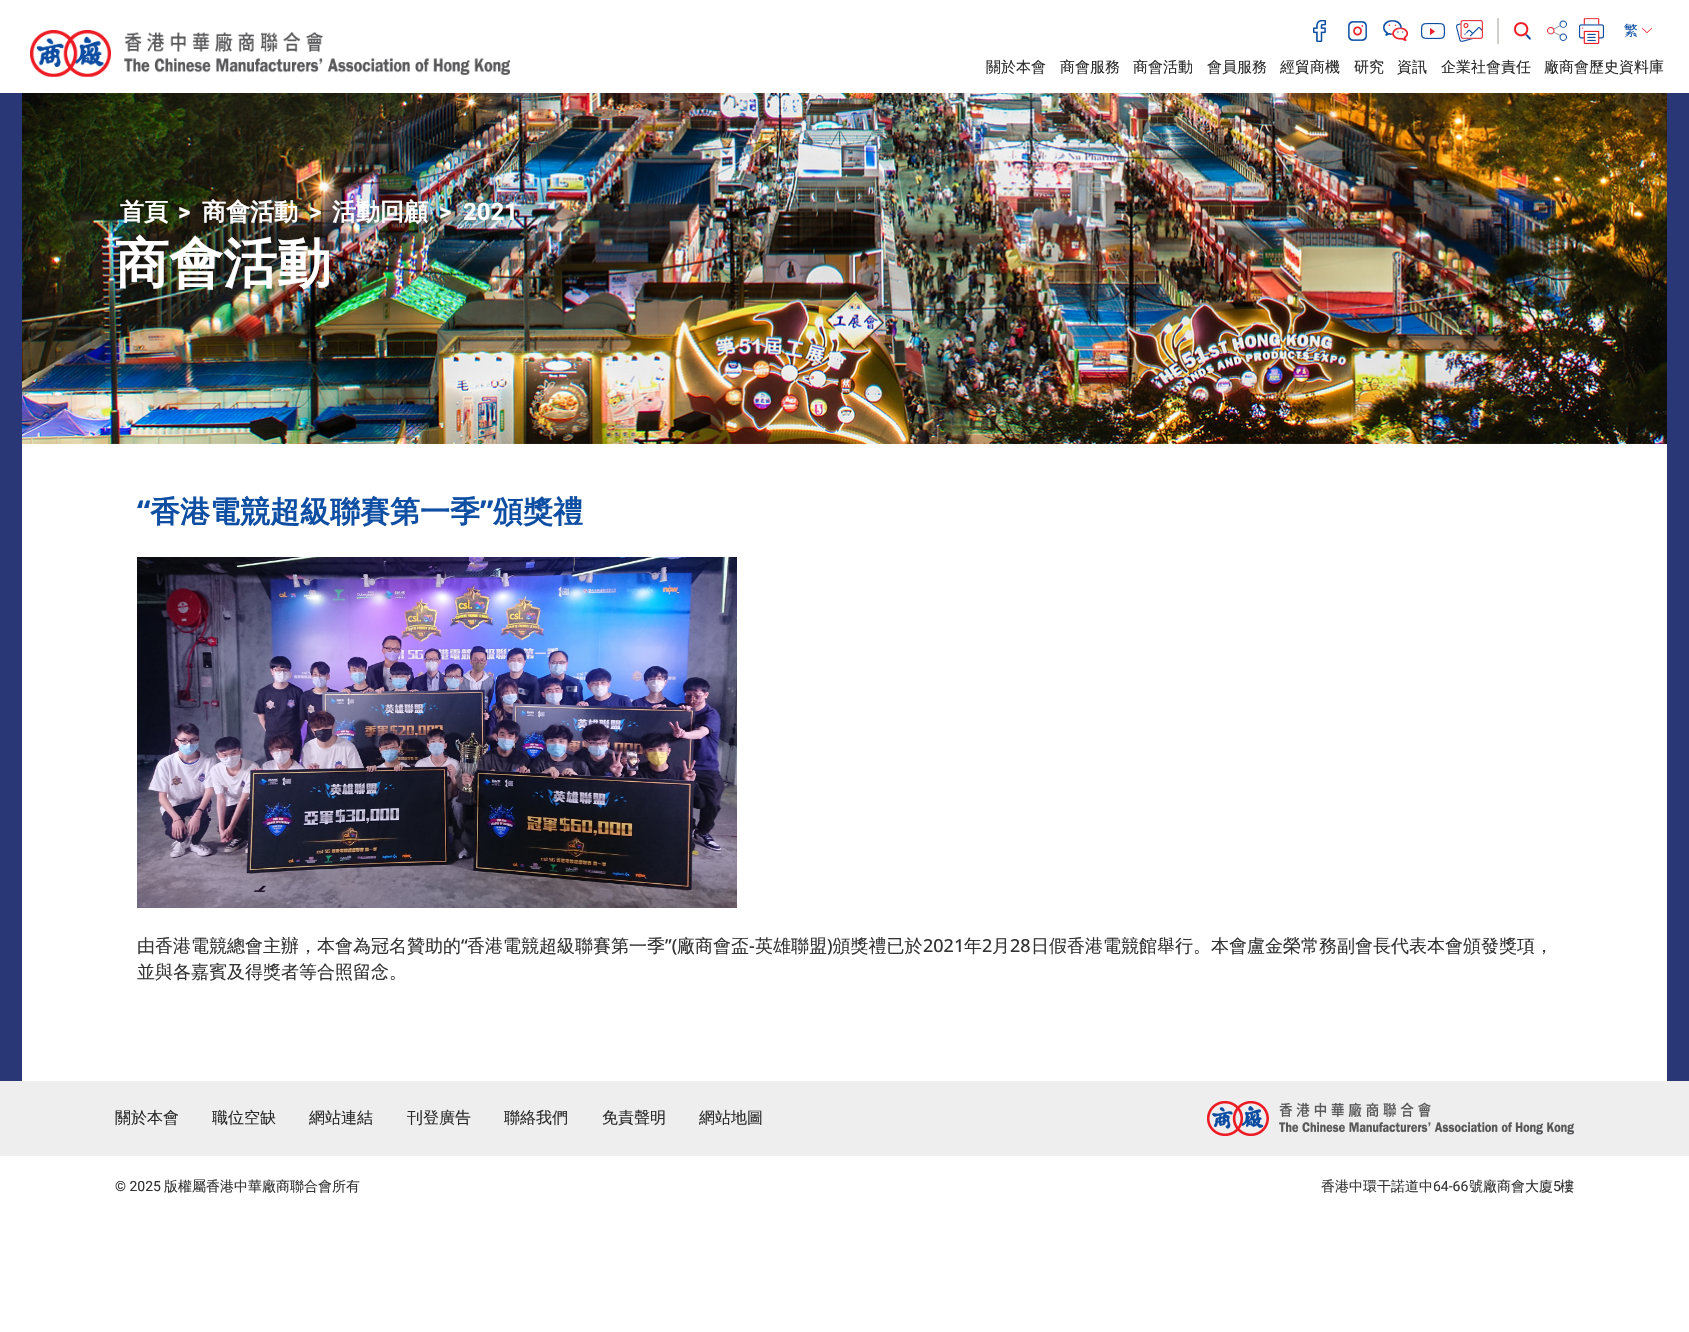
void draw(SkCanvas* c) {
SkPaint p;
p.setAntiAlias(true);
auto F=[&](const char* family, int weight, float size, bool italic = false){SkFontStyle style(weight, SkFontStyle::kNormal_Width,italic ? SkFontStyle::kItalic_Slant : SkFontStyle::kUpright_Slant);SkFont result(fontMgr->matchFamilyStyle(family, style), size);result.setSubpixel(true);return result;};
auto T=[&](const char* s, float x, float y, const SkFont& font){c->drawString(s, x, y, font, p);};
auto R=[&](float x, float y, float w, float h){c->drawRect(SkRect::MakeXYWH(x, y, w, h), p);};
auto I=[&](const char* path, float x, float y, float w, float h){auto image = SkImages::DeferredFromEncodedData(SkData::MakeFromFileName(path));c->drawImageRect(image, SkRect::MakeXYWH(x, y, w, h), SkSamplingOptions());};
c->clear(0xffffffff);
I("1.png",30,30,480,47);
I("2.png",1313,20,13,22);
I("3.png",1348,21,19,20);
I("4.png",1383,20,25,21);
I("5.png",1421,23,24,16);
I("6.png",1456,20,27,22);
p.setColor(0xffd2cfca);
R(1497,18,2,26);
I("7.png",1514,22,17,18);
I("8.png",1547,20,20,21);
I("9.png",1579,18,25,26);
auto f1 = F("WenQuanYi Zen Hei",500,14);
p.setColor(0xff0e4ea3);
T("繁",1624,35,f1);
I("10.png",1642,28,10,5);
auto f2 = F("WenQuanYi Zen Hei",500,15);
p.setColor(0xff2a2a2a);
T("關於本會",986,72,f2);
T("商會服務",1060,72,f2);
T("商會活動",1133,72,f2);
T("會員服務",1207,72,f2);
T("經貿商機",1280,72,f2);
T("研究",1354,72,f2);
T("資訊",1397,72,f2);
T("企業社會責任",1441,72,f2);
T("廠商會歷史資料庫",1544,72,f2);
p.setColor(0xff2a3776);
R(0,93,1689,988);
I("11.png",22,93,1645,351);
auto f3 = F("WenQuanYi Zen Hei",700,24);
p.setColor(0xffffffff);
T("首頁",120,220,f3);
auto f4 = F("Roboto",700,24);
T(">",178,220,f4);
T("商會活動",202,220,f3);
T(">",309,220,f4);
T("活動回顧",332,220,f3);
T(">",439,220,f4);
T("2021",463,220,f4);
auto f5 = F("WenQuanYi Zen Hei",700,54);
T("商會活動",115,282,f5);
R(22,444,1645,637);
auto f6 = F("Open Sans",700,30);
p.setColor(0xff0e4ea3);
T("“",137,522,f6);
auto f7 = F("WenQuanYi Zen Hei",700,30);
T("香港電競超級聯賽第一季",150,522,f7);
T("”",480,522,f6);
T("頒獎禮",493,522,f7);
I("12.png",137,557,600,351);
auto f8 = F("WenQuanYi Zen Hei",500,18);
p.setColor(0xff333333);
T("由香港電競總會主辦，本會為冠名贊助的",137,952,f8);
auto f9 = F("Open Sans",500,18);
T("“",461,952,f9);
T("香港電競超級聯賽第一季",467,952,f8);
T("”(",665,952,f9);
T("廠商會盃",677,952,f8);
T("英雄聯盟 頒獎禮已於",755,952,f8);
T("2021",923,952,f9);
T("年",964,952,f8);
T("2",982,952,f9);
T("月",992,952,f8);
T("28",1010,952,f9);
T("日假香港電競館舉行。本會盧金榮常務副會長代表本會頒發獎項，",1031,952,f8);
T("-",749,952,f9);
T(")",827,952,f9);
T("並與各嘉賓及得獎者等合照留念。",137,978,f8);
p.setColor(0xffeeeeee);
R(0,1081,1689,75);
auto f10 = F("WenQuanYi Zen Hei",500,16);
p.setColor(0xff2a2a2a);
T("關於本會",115,1123,f10);
T("職位空缺",212,1123,f10);
T("網站連結",309,1123,f10);
T("刊登廣告",407,1123,f10);
T("聯絡我們",504,1123,f10);
T("免責聲明",602,1123,f10);
T("網站地圖",699,1123,f10);
I("13.png",1207,1101,367,35);
auto f11 = F("Roboto",400,14);
p.setColor(0xff333333);
T("© 2025",115,1191,f11);
T("版權屬香港中華廠商聯合會所有",164,1191,f1);
T("香港中環干諾道中",1321,1191,f1);
T("64-66",1433,1191,f11);
T("號廠商會大廈",1469,1191,f1);
T("5",1553,1191,f11);
T("樓",1560,1191,f1);
}
